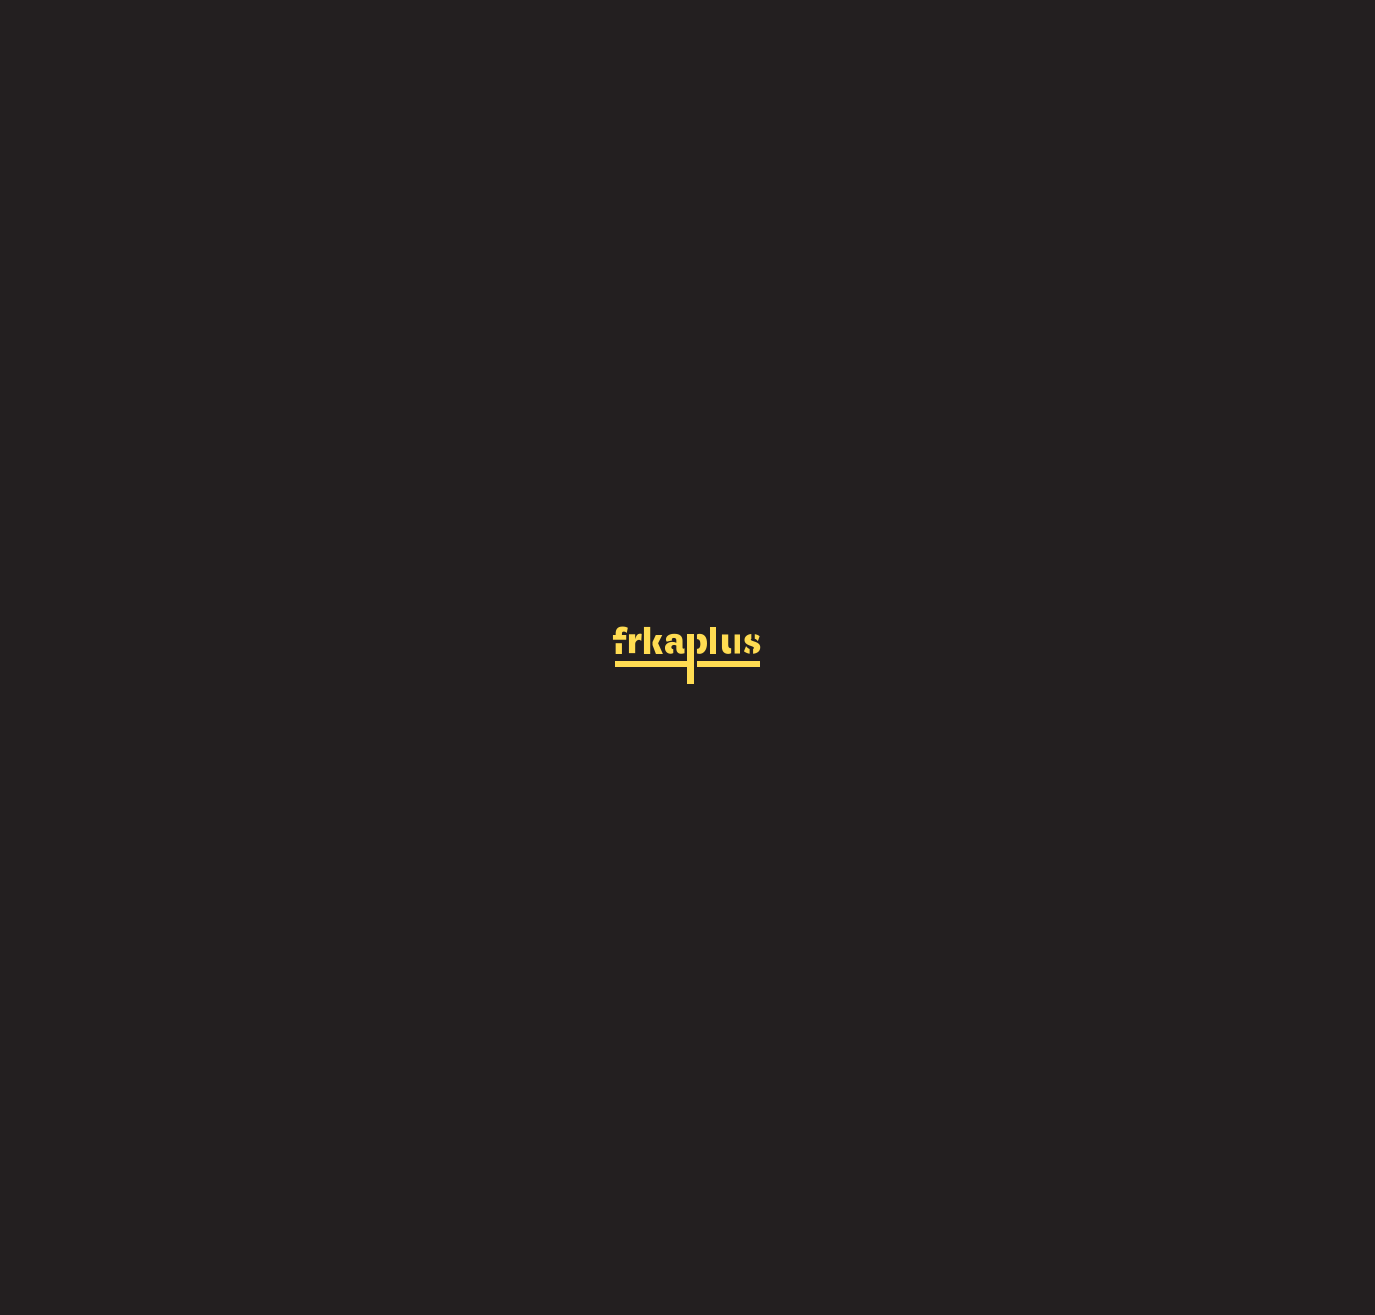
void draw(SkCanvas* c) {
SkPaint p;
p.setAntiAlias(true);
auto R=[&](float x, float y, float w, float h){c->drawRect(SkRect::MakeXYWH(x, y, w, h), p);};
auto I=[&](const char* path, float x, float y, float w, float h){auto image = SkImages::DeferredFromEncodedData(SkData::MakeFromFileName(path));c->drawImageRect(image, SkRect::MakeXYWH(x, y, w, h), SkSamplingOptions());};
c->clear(0xff231f20);
I("1.png",612,626,16,28);
I("2.png",628,633,14,21);
I("3.png",643,626,20,28);
I("4.png",665,633,20,21);
I("5.png",696,633,11,21);
p.setColor(0xffffdc52);
R(710,627,6,27);
I("6.png",721,634,19,20);
I("7.png",744,634,17,20);
R(615,661,72,6);
R(687,634,7,50);
R(697,661,63,6);
}
